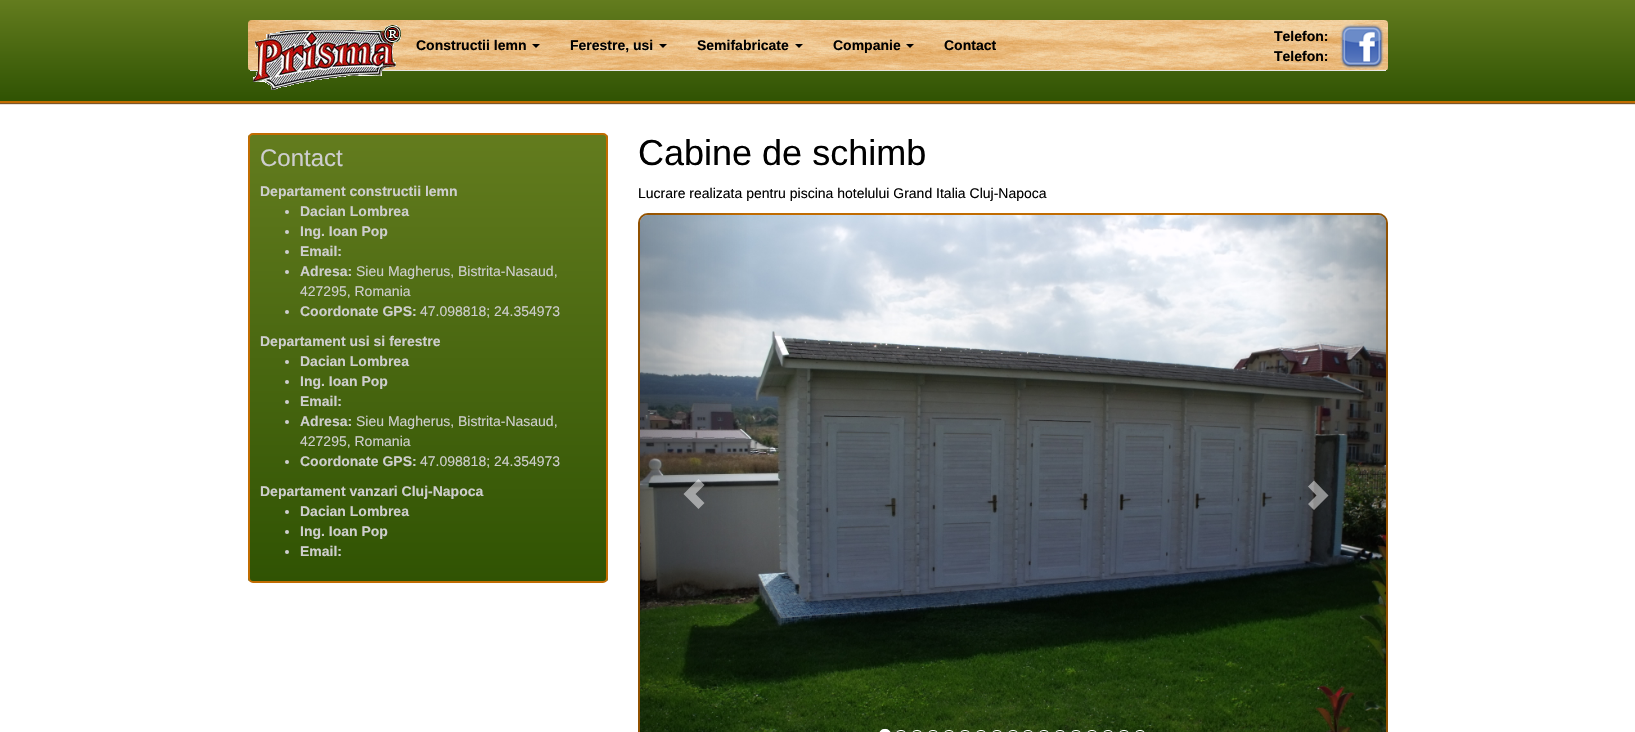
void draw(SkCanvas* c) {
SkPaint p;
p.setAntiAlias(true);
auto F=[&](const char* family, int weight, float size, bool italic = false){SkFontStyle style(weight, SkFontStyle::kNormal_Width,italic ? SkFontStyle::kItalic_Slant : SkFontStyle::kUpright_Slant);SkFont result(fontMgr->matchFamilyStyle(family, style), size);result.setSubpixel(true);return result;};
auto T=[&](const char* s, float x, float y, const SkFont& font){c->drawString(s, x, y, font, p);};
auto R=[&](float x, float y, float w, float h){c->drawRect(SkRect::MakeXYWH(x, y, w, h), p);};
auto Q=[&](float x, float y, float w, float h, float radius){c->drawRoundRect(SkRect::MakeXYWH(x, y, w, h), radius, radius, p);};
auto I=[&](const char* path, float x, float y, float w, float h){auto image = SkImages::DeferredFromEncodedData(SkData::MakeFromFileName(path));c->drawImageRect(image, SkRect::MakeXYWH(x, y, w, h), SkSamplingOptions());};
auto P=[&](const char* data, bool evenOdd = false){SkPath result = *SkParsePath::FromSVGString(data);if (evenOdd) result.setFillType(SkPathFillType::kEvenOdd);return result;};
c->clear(0xffffffff);
p.setColor(0xff7c5629);
p.setMaskFilter(SkMaskFilter::MakeBlur(kNormal_SkBlurStyle, .5));
c->drawRect(SkRect::MakeXYWH(0,1,1635,103),p);
p.setMaskFilter(nullptr);
{
const SkColor colors[] = {0xff637c1e,0xff305303};
const float stops[] = {0,1};
const SkPoint ends[] = {{818,0}, {818,101}};
p.setShader(SkGradientShader::MakeLinear(ends, colors, stops, 2, SkTileMode::kClamp));
p.setAlpha(255);
}
R(0,0,1635,101);
p.setShader(nullptr);
p.setColor(0xffc16c01);
R(0,101,1635,2);
I("1.png",248,20,1140,50);
p.setColor(0xffe7e7e7);
R(250,70,1136,1);
I("2.png",253,25,148,65);
auto f1 = F("Liberation Sans",700,14);
p.setColor(0xff000000);
T("Constructii lemn",416,50,f1);
c->drawPath(P("M532 44h8l-4 4z"),p);
T("Ferestre, usi",570,50,f1);
c->drawPath(P("M659 44h8l-4 4z"),p);
T("Semifabricate",697,50,f1);
c->drawPath(P("M795 44h8l-4 4z"),p);
T("Companie",833,50,f1);
c->drawPath(P("M906 44h8l-4 4z"),p);
T("Contact",944,50,f1);
T("Telefon:",1274,41,f1);
T("Telefon:",1274,61,f1);
I("3.png",1340,24,44,45);
c->save();
c->clipPath(P("M253 133h350c3 0 5 2 5 5v440c0 3-2 5-5 5h-350c-3 0-5-2-5-5v-440c0-3 2-5 5-5z"),true);
{
const SkColor colors[] = {0xff637c1e,0xff305303};
const float stops[] = {0,1};
const SkPoint ends[] = {{428,135}, {428,581}};
p.setShader(SkGradientShader::MakeLinear(ends, colors, stops, 2, SkTileMode::kClamp));
p.setAlpha(255);
}
R(248,135,360,446);
c->restore();
p.setStroke(true);
p.setStrokeWidth(2);
p.setShader(nullptr);
p.setColor(0xffc16c01);
c->drawRoundRect(SkRect::MakeXYWH(249,134,358,448),4,4,p);
auto f2 = F("Liberation Sans",400,24);
p.setStroke(false);
p.setColor(0xffcecece);
T("Contact",260,166,f2);
T("Departament constructii lemn",260,196,f1);
c->drawCircle(287,212,2,p);
T("Dacian Lombrea",300,216,f1);
c->drawCircle(287,232,2,p);
T("Ing. Ioan Pop",300,236,f1);
c->drawCircle(287,252,2,p);
T("Email:",300,256,f1);
c->drawCircle(287,272,2,p);
T("Adresa:",300,276,f1);
auto f3 = F("Liberation Sans",400,14);
T("Sieu Magherus, Bistrita-Nasaud,",356,276,f3);
T("427295, Romania",300,296,f3);
c->drawCircle(287,312,2,p);
T("Coordonate GPS:",300,316,f1);
T("47.098818; 24.354973",420,316,f3);
T("Departament usi si ferestre",260,346,f1);
c->drawCircle(287,362,2,p);
T("Dacian Lombrea",300,366,f1);
c->drawCircle(287,382,2,p);
T("Ing. Ioan Pop",300,386,f1);
c->drawCircle(287,402,2,p);
T("Email:",300,406,f1);
c->drawCircle(287,422,2,p);
T("Adresa:",300,426,f1);
T("Sieu Magherus, Bistrita-Nasaud,",356,426,f3);
T("427295, Romania",300,446,f3);
c->drawCircle(287,462,2,p);
T("Coordonate GPS:",300,466,f1);
T("47.098818; 24.354973",420,466,f3);
T("Departament vanzari Cluj-Napoca",260,496,f1);
c->drawCircle(287,512,2,p);
T("Dacian Lombrea",300,516,f1);
c->drawCircle(287,532,2,p);
T("Ing. Ioan Pop",300,536,f1);
c->drawCircle(287,552,2,p);
T("Email:",300,556,f1);
auto f4 = F("Liberation Sans",400,36);
p.setColor(0xff000000);
T("Cabine de schimb",638,165,f4);
T("Lucrare realizata pentru piscina hotelului Grand Italia Cluj-Napoca",638,198,f3);
p.setStroke(true);
p.setColor(0xffc16c01);
c->drawRoundRect(SkRect::MakeXYWH(639,214,748,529),9,9,p);
I("4.png",640,215,746,517);
p.setStroke(false);
{
const SkColor colors[] = {0x40000000,0x00000000};
const float stops[] = {0,1};
const SkPoint ends[] = {{638,495}, {750,495}};
p.setShader(SkGradientShader::MakeLinear(ends, colors, stops, 2, SkTileMode::kClamp));
p.setAlpha(255);
}
Q(638,213,112,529,10);
p.setShader(nullptr);
p.setColor(0x80ffffff);
c->drawPath(P("M683.5 494l15 15l6-6l-9-9l9-9l-6-6z"),p);
p.setColor(0xffffffff);
c->drawRoundRect(SkRect::MakeXYWH(879.5,729.5,11,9),5.5,5.5,p);
p.setStroke(true);
p.setStrokeWidth(1);
c->drawRoundRect(SkRect::MakeXYWH(879.5,729.5,11,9),5.5,5.5,p);
c->drawRoundRect(SkRect::MakeXYWH(896.5,730.5,9,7),4.5,4.5,p);
c->drawRoundRect(SkRect::MakeXYWH(912.5,730.5,9,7),4.5,4.5,p);
c->drawRoundRect(SkRect::MakeXYWH(928.5,730.5,9,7),4.5,4.5,p);
c->drawRoundRect(SkRect::MakeXYWH(944.5,730.5,9,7),4.5,4.5,p);
c->drawRoundRect(SkRect::MakeXYWH(960.5,730.5,9,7),4.5,4.5,p);
c->drawRoundRect(SkRect::MakeXYWH(976.5,730.5,9,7),4.5,4.5,p);
c->drawRoundRect(SkRect::MakeXYWH(992.5,730.5,9,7),4.5,4.5,p);
c->drawRoundRect(SkRect::MakeXYWH(1008.5,730.5,9,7),4.5,4.5,p);
c->drawRoundRect(SkRect::MakeXYWH(1023.5,730.5,9,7),4.5,4.5,p);
c->drawRoundRect(SkRect::MakeXYWH(1039.5,730.5,9,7),4.5,4.5,p);
c->drawRoundRect(SkRect::MakeXYWH(1055.5,730.5,9,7),4.5,4.5,p);
c->drawRoundRect(SkRect::MakeXYWH(1071.5,730.5,9,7),4.5,4.5,p);
c->drawRoundRect(SkRect::MakeXYWH(1087.5,730.5,9,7),4.5,4.5,p);
c->drawRoundRect(SkRect::MakeXYWH(1103.5,730.5,9,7),4.5,4.5,p);
c->drawRoundRect(SkRect::MakeXYWH(1119.5,730.5,9,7),4.5,4.5,p);
c->drawRoundRect(SkRect::MakeXYWH(1135.5,730.5,9,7),4.5,4.5,p);
p.setStroke(false);
{
const SkColor colors[] = {0x00000000,0x40000000};
const float stops[] = {0,1};
const SkPoint ends[] = {{1275,495}, {1388,495}};
p.setShader(SkGradientShader::MakeLinear(ends, colors, stops, 2, SkTileMode::kClamp));
p.setAlpha(255);
}
Q(1275,213,113,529,10);
p.setShader(nullptr);
p.setColor(0x80ffffff);
c->drawPath(P("M1308 504l8.5-8.5l-8.5-9l6-6l14.5 15l-14.5 14.5z"),p);
}
